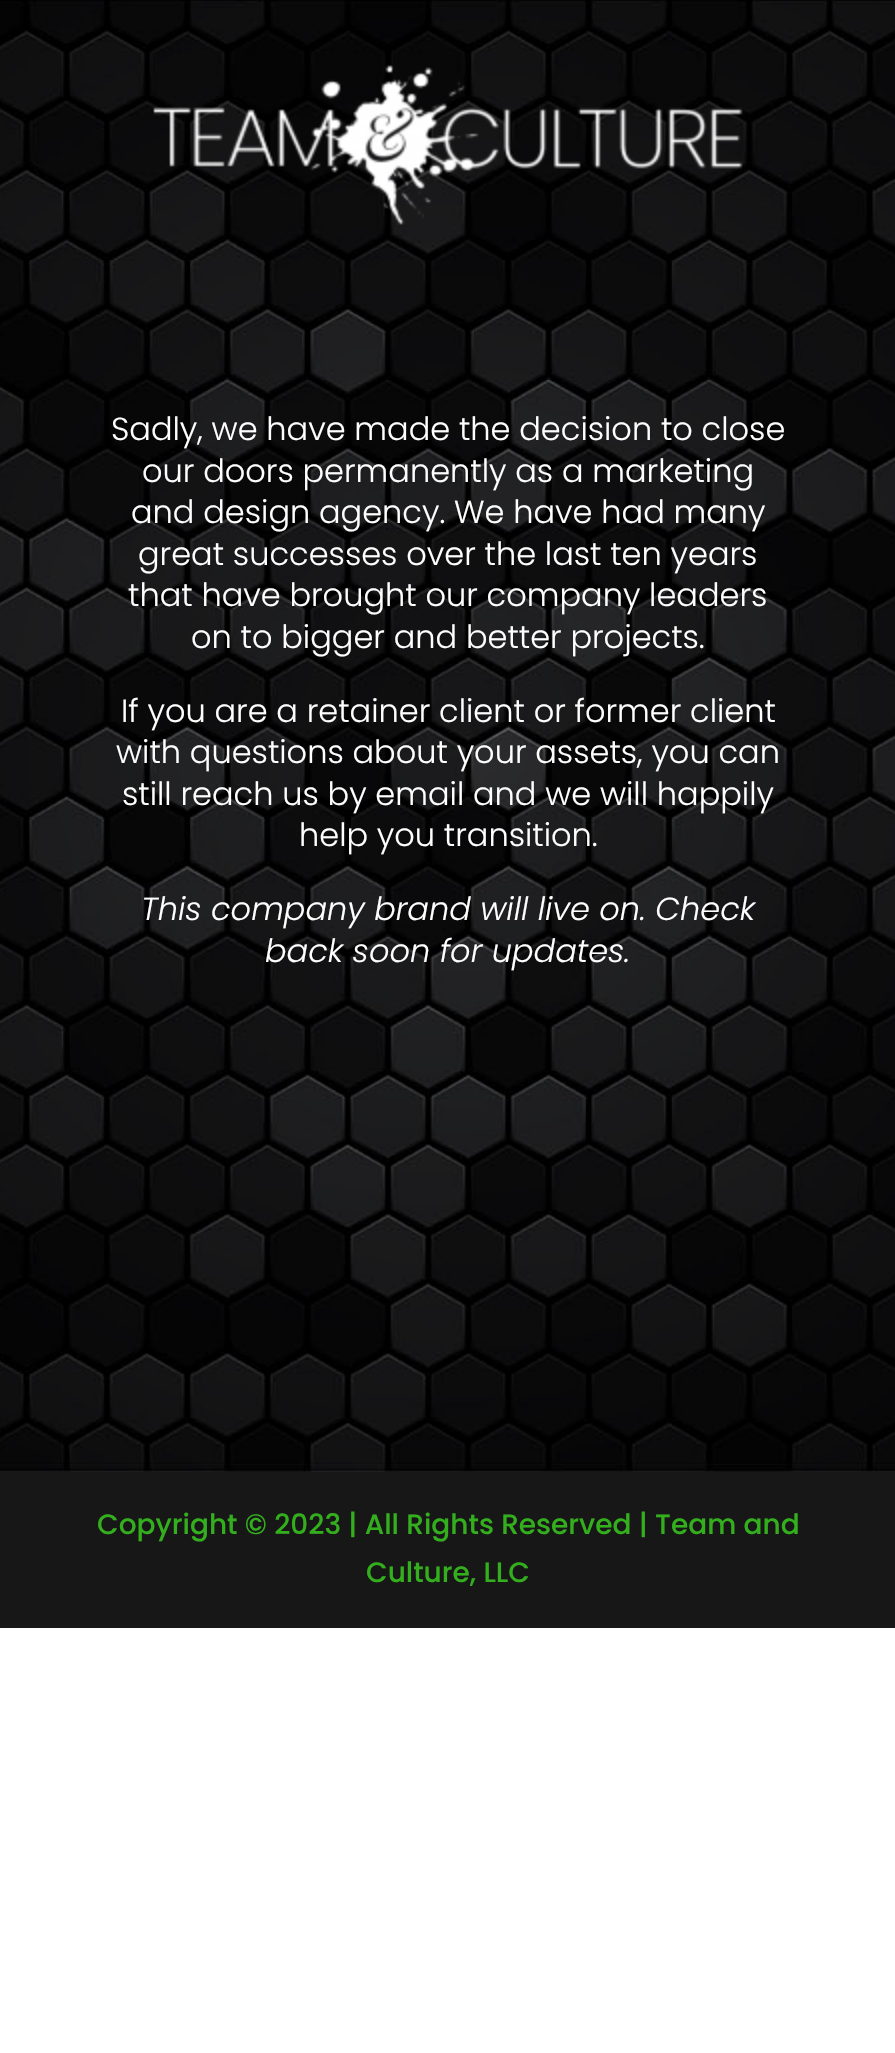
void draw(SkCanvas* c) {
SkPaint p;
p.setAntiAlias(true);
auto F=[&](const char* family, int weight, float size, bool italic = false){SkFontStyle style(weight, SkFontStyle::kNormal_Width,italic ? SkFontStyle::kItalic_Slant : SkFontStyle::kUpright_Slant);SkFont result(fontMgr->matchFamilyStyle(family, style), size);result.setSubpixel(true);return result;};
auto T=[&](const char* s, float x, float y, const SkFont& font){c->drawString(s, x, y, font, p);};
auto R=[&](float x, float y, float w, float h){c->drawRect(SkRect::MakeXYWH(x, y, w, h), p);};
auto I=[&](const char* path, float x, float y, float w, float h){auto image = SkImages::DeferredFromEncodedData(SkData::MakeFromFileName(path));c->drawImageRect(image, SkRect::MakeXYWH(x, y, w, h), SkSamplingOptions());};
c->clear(0xffffffff);
I("1.png",0,0,895,1472);
I("2.png",153,65,590,160);
auto f1 = F("Poppins",300,32);
p.setColor(0xffffffff);
T("Sadly, we have made the decision to close",111,440,f1);
T("our doors permanently as a marketing",142,482,f1);
T("and design agency. We have had many",131,523,f1);
T("great successes over the last ten years",138,565,f1);
T("that have brought our company leaders",128,606,f1);
T("on to bigger and better projects.",191,648,f1);
T("If you are a retainer client or former client",121,722,f1);
T("with questions about your assets, you can",116,763,f1);
T("still reach us by email and we will happily",122,805,f1);
T("help you transition.",299,846,f1);
auto f2 = F("Poppins",300,32,true);
T("This company brand will live on. Check",141,920,f2);
T("back soon for updates.",265,962,f2);
p.setColor(0xff171717);
R(0,1472,895,156);
auto f3 = F("Poppins",500,28);
p.setColor(0xff33af1d);
T("Copyright © 2023 | All Rights Reserved | Team and",97,1534,f3);
T("Culture, LLC",366,1582,f3);
}
